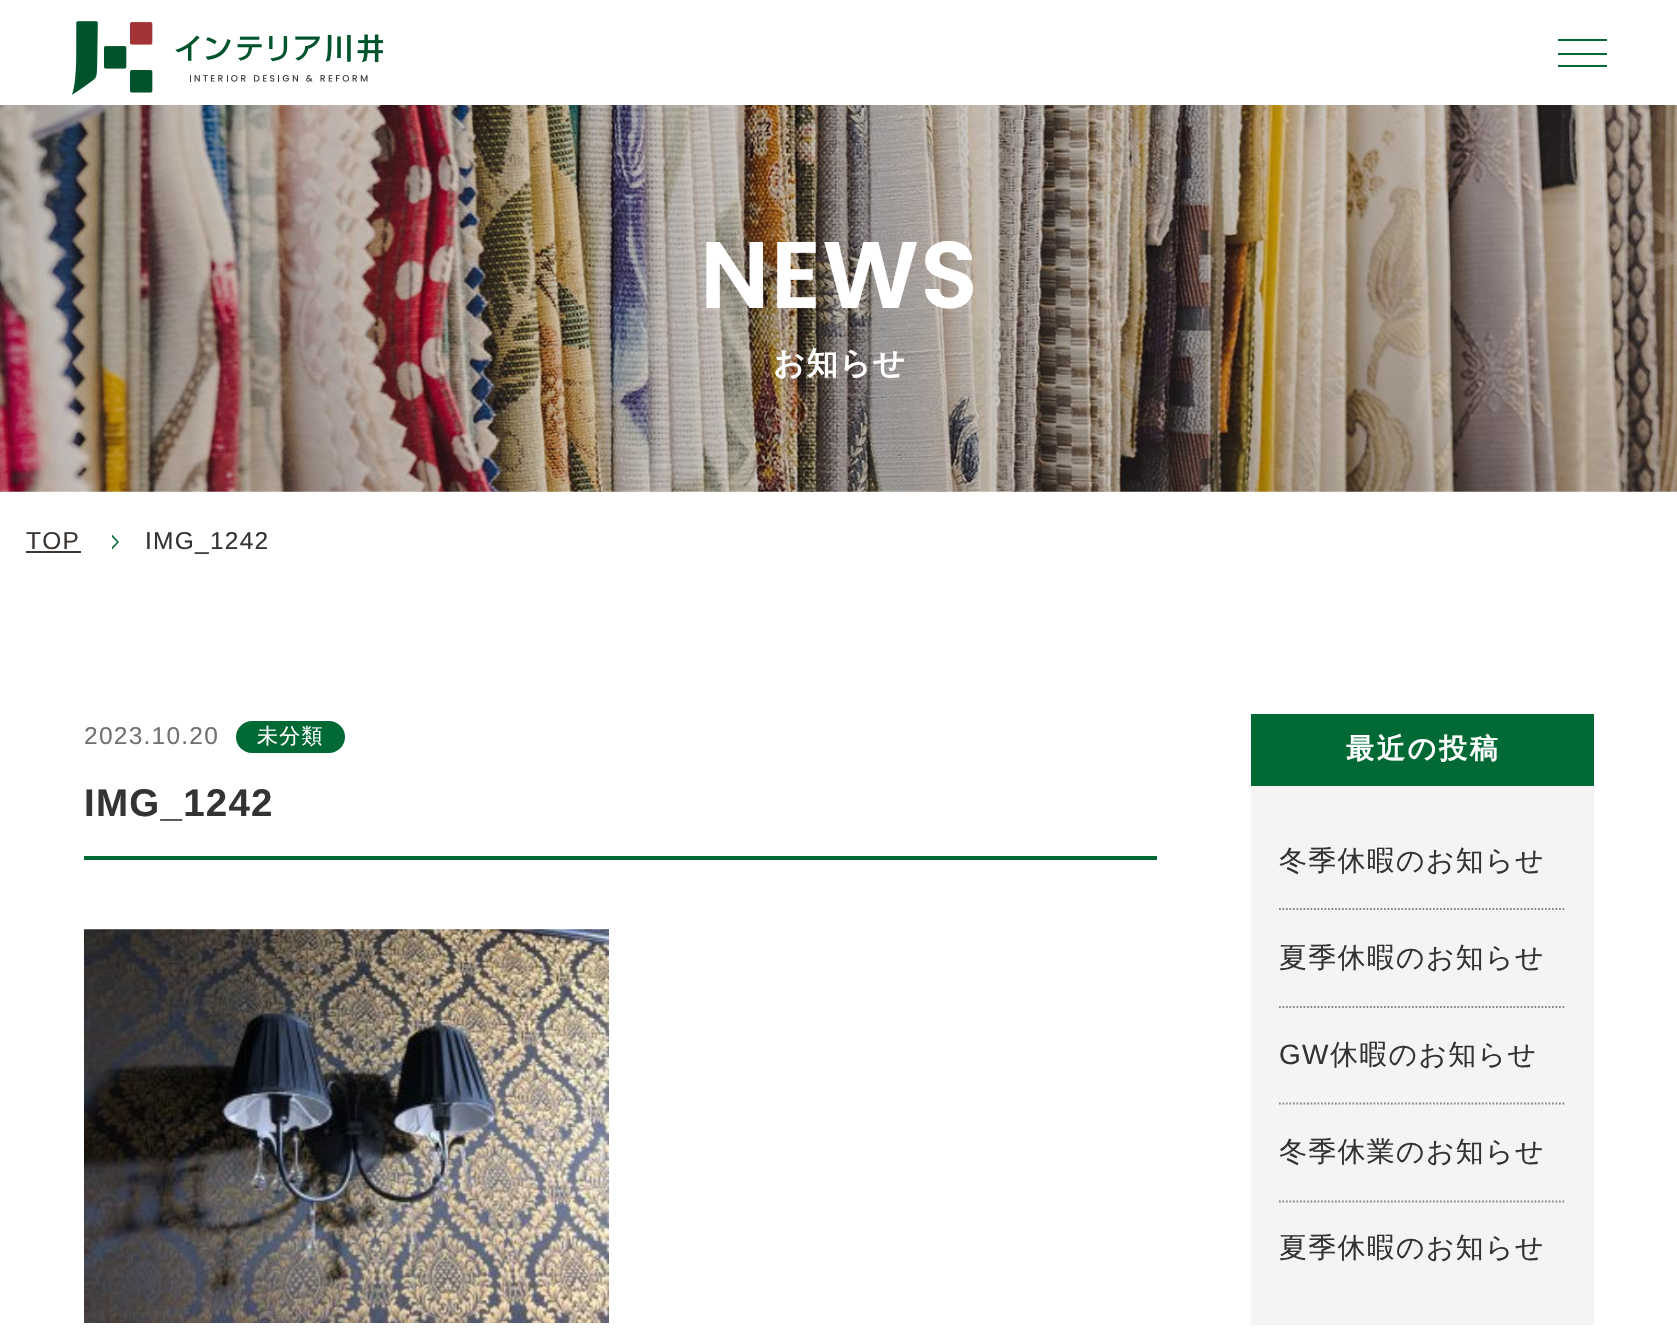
void draw(SkCanvas* c) {
SkPaint p;
p.setAntiAlias(true);
auto F=[&](const char* family, int weight, float size, bool italic = false){SkFontStyle style(weight, SkFontStyle::kNormal_Width,italic ? SkFontStyle::kItalic_Slant : SkFontStyle::kUpright_Slant);SkFont result(fontMgr->matchFamilyStyle(family, style), size);result.setSubpixel(true);return result;};
auto L=[&](const char* s, float x, float y, const SkFont& font, const SkPaint& ink, float letter, float word){std::vector<SkGlyphID> glyphs(font.countText(s, strlen(s), SkTextEncoding::kUTF8));std::vector<float> xs(glyphs.size());font.textToGlyphs(s, strlen(s), SkTextEncoding::kUTF8, glyphs);font.getXPos(glyphs, xs, x);float extra = 0;for (size_t i = 0; i < glyphs.size(); i++) {xs[i] += extra;extra += letter + word * (glyphs[i] == font.unicharToGlyph(' '));}c->drawTextBlob(SkTextBlob::MakeFromPosHGlyphs(glyphs, xs, y, font), 0, 0, ink);};
auto R=[&](float x, float y, float w, float h){c->drawRect(SkRect::MakeXYWH(x, y, w, h), p);};
auto Q=[&](float x, float y, float w, float h, float radius){c->drawRoundRect(SkRect::MakeXYWH(x, y, w, h), radius, radius, p);};
auto I=[&](const char* path, float x, float y, float w, float h){auto image = SkImages::DeferredFromEncodedData(SkData::MakeFromFileName(path));c->drawImageRect(image, SkRect::MakeXYWH(x, y, w, h), SkSamplingOptions());};
auto P=[&](const char* data, bool evenOdd = false){SkPath result = *SkParsePath::FromSVGString(data);if (evenOdd) result.setFillType(SkPathFillType::kEvenOdd);return result;};
c->clear(0xffffffff);
I("1.png",72,21,311,74);
p.setColor(0xff006934);
R(1558,39,49,2);
R(1558,53,49,2);
R(1558,65,49,2);
I("2.png",0,105,1677,387);
auto f1 = F("Poppins",600,94.5);
p.setColor(0xffffffff);
L("NEWS",700,308,f1,p,1.25,0);
auto f2 = F("WenQuanYi Zen Hei",700,31.5);
L("お知らせ",773,374,f2,p,1.25,0);
auto f3 = F("Liberation Sans",400,24.5);
p.setColor(0xff3d3734);
L("TOP",26,549,f3,p,1.25,0);
R(26,551,55,2);
p.setColor(0xff006934);
c->drawPath(P("M112 534.5l7 7.5h-2l-5-5zm7 7.5l-7 7.5v-2.5l5-5z"),p);
p.setColor(0xff333333);
L("IMG_1242",145,549,f3,p,1.25,0);
p.setColor(0xff006934);
R(84,856,1073,4);
p.setColor(0xff727171);
L("2023.10.20",84,744,f3,p,1.25,0);
p.setColor(0xff006934);
Q(236,721,109,32,16);
auto f4 = F("WenQuanYi Zen Hei",500,21);
p.setColor(0xffffffff);
L("未分類",257,743,f4,p,1.25,0);
auto f5 = F("Liberation Sans",700,38.5);
p.setColor(0xff333333);
L("IMG_1242",84,816,f5,p,1.25,0);
I("3.png",84,929,525,394);
p.setColor(0xfff5f4f3);
R(1251,786,343,539);
p.setColor(0xff006934);
R(1251,714,343,72);
auto f6 = F("WenQuanYi Zen Hei",700,28);
p.setColor(0xffffffff);
L("最近の投稿",1346,758,f6,p,2.75,0);
auto f7 = F("WenQuanYi Zen Hei",500,28);
p.setColor(0xff333333);
L("冬季休暇のお知らせ",1279,870,f7,p,1.25,0);
p.setStroke(true);
p.setStrokeWidth(1.8);
p.setColor(0xff888989);
p.setPathEffect(SkDashPathEffect::Make({{1.75f,1.75f}}, 0));
c->drawPath(P("M1279 909h287"),p);
p.setPathEffect(nullptr);
p.setStroke(false);
p.setColor(0xff333333);
L("夏季休暇のお知らせ",1279,967,f7,p,1.25,0);
p.setStroke(true);
p.setColor(0xff888989);
p.setPathEffect(SkDashPathEffect::Make({{1.75f,1.75f}}, 0));
c->drawPath(P("M1279 1007h287"),p);
p.setPathEffect(nullptr);
auto f8 = F("Liberation Sans",400,28);
p.setStroke(false);
p.setColor(0xff333333);
L("GW",1279,1064,f8,p,1.25,0);
L("休暇のお知らせ",1330,1064,f7,p,1.25,0);
p.setStroke(true);
p.setColor(0xff888989);
p.setPathEffect(SkDashPathEffect::Make({{1.75f,1.75f}}, 0));
c->drawPath(P("M1279 1103.5h287"),p);
p.setPathEffect(nullptr);
p.setStroke(false);
p.setColor(0xff333333);
L("冬季休業のお知らせ",1279,1161,f7,p,1.25,0);
p.setStroke(true);
p.setColor(0xff888989);
p.setPathEffect(SkDashPathEffect::Make({{1.75f,1.75f}}, 0));
c->drawPath(P("M1279 1201.5h287"),p);
p.setPathEffect(nullptr);
p.setStroke(false);
p.setColor(0xff333333);
L("夏季休暇のお知らせ",1279,1257,f7,p,1.25,0);
}
